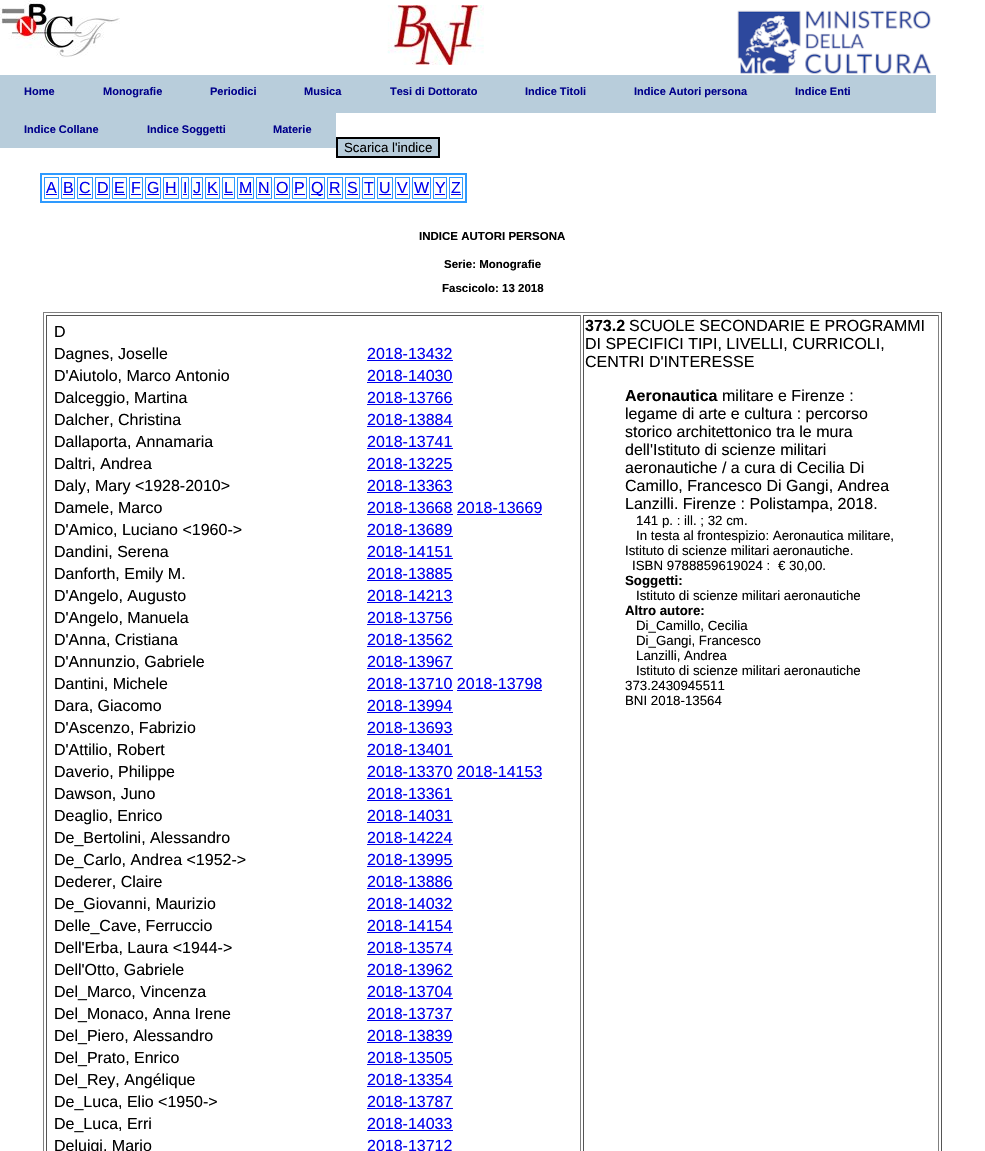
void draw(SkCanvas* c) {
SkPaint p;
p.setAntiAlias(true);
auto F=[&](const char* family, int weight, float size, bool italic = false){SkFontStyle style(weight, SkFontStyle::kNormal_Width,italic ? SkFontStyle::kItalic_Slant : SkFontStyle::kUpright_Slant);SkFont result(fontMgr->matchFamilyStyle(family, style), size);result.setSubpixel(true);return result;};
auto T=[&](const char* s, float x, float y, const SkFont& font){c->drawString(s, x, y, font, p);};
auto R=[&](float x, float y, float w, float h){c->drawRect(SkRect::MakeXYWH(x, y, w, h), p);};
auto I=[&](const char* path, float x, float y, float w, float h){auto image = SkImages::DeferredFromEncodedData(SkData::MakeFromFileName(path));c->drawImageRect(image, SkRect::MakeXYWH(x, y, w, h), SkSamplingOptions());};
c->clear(0xffffffff);
I("1.png",0,0,120,58);
I("2.png",387,5,97,60);
I("3.png",737,10,195,64);
p.setColor(0xffb8cddb);
R(0,75,936,38);
auto f1 = F("Liberation Sans",700,11);
p.setColor(0xff00008b);
T("Home",24,95,f1);
T("Monografie",103,95,f1);
T("Periodici",210,95,f1);
T("Musica",304,95,f1);
T("Tesi di Dottorato",390,95,f1);
T("Indice Titoli",525,95,f1);
T("Indice Autori persona",634,95,f1);
T("Indice Enti",795,95,f1);
p.setColor(0xffb8cddb);
R(0,113,336,35);
p.setColor(0xff00008b);
T("Indice Collane",24,133,f1);
T("Indice Soggetti",147,133,f1);
T("Materie",273,133,f1);
p.setColor(0xffb8cddb);
c->drawRect(SkRect::MakeXYWH(337,138,102,19),p);
p.setStroke(true);
p.setStrokeWidth(2);
p.setColor(0xff000000);
c->drawRect(SkRect::MakeXYWH(337,138,102,19),p);
auto f2 = F("Liberation Sans",400,13.3);
p.setStroke(false);
T("Scarica l'indice",344,152,f2);
p.setStroke(true);
p.setColor(0xff2e9afe);
c->drawRect(SkRect::MakeXYWH(41,174,425,28),p);
p.setStrokeWidth(1);
c->drawRect(SkRect::MakeXYWH(44.5,177.5,14,21),p);
auto f3 = F("Liberation Sans",400,16);
p.setStroke(false);
p.setColor(0xff0000ee);
T("A",46,193,f3);
R(46,194,11,1);
p.setStroke(true);
p.setColor(0xff2e9afe);
c->drawRect(SkRect::MakeXYWH(61.5,177.5,13,21),p);
p.setStroke(false);
p.setColor(0xff0000ee);
T("B",63,193,f3);
R(63,194,10,1);
p.setStroke(true);
p.setColor(0xff2e9afe);
c->drawRect(SkRect::MakeXYWH(77.5,177.5,15,21),p);
p.setStroke(false);
p.setColor(0xff0000ee);
T("C",79,193,f3);
R(79,194,12,1);
p.setStroke(true);
p.setColor(0xff2e9afe);
c->drawRect(SkRect::MakeXYWH(95.5,177.5,14,21),p);
p.setStroke(false);
p.setColor(0xff0000ee);
T("D",97,193,f3);
R(97,194,11,1);
p.setStroke(true);
p.setColor(0xff2e9afe);
c->drawRect(SkRect::MakeXYWH(112.5,177.5,14,21),p);
p.setStroke(false);
p.setColor(0xff0000ee);
T("E",114,193,f3);
R(114,194,11,1);
p.setStroke(true);
p.setColor(0xff2e9afe);
c->drawRect(SkRect::MakeXYWH(129.5,177.5,13,21),p);
p.setStroke(false);
p.setColor(0xff0000ee);
T("F",131,193,f3);
R(131,194,10,1);
p.setStroke(true);
p.setColor(0xff2e9afe);
c->drawRect(SkRect::MakeXYWH(145.5,177.5,15,21),p);
p.setStroke(false);
p.setColor(0xff0000ee);
T("G",147,193,f3);
R(147,194,12,1);
p.setStroke(true);
p.setColor(0xff2e9afe);
c->drawRect(SkRect::MakeXYWH(163.5,177.5,15,21),p);
p.setStroke(false);
p.setColor(0xff0000ee);
T("H",165,193,f3);
R(165,194,12,1);
p.setStroke(true);
p.setColor(0xff2e9afe);
c->drawRect(SkRect::MakeXYWH(181.5,177.5,7,21),p);
p.setStroke(false);
p.setColor(0xff0000ee);
T("I",183,193,f3);
R(183,194,4,1);
p.setStroke(true);
p.setColor(0xff2e9afe);
c->drawRect(SkRect::MakeXYWH(191.5,177.5,11,21),p);
p.setStroke(false);
p.setColor(0xff0000ee);
T("J",193,193,f3);
R(193,194,8,1);
p.setStroke(true);
p.setColor(0xff2e9afe);
c->drawRect(SkRect::MakeXYWH(205.5,177.5,14,21),p);
p.setStroke(false);
p.setColor(0xff0000ee);
T("K",207,193,f3);
R(207,194,11,1);
p.setStroke(true);
p.setColor(0xff2e9afe);
c->drawRect(SkRect::MakeXYWH(222.5,177.5,12,21),p);
p.setStroke(false);
p.setColor(0xff0000ee);
T("L",224,193,f3);
R(224,194,9,1);
p.setStroke(true);
p.setColor(0xff2e9afe);
c->drawRect(SkRect::MakeXYWH(237.5,177.5,16,21),p);
p.setStroke(false);
p.setColor(0xff0000ee);
T("M",239,193,f3);
R(239,194,13,1);
p.setStroke(true);
p.setColor(0xff2e9afe);
c->drawRect(SkRect::MakeXYWH(256.5,177.5,15,21),p);
p.setStroke(false);
p.setColor(0xff0000ee);
T("N",258,193,f3);
R(258,194,12,1);
p.setStroke(true);
p.setColor(0xff2e9afe);
c->drawRect(SkRect::MakeXYWH(274.5,177.5,15,21),p);
p.setStroke(false);
p.setColor(0xff0000ee);
T("O",276,193,f3);
R(276,194,12,1);
p.setStroke(true);
p.setColor(0xff2e9afe);
c->drawRect(SkRect::MakeXYWH(292.5,177.5,14,21),p);
p.setStroke(false);
p.setColor(0xff0000ee);
T("P",294,193,f3);
R(294,194,11,1);
p.setStroke(true);
p.setColor(0xff2e9afe);
c->drawRect(SkRect::MakeXYWH(309.5,177.5,15,21),p);
p.setStroke(false);
p.setColor(0xff0000ee);
R(311,194,12,1);
T("Q",311,193,f3);
p.setStroke(true);
p.setColor(0xff2e9afe);
c->drawRect(SkRect::MakeXYWH(327.5,177.5,15,21),p);
p.setStroke(false);
p.setColor(0xff0000ee);
T("R",329,193,f3);
R(329,194,12,1);
p.setStroke(true);
p.setColor(0xff2e9afe);
c->drawRect(SkRect::MakeXYWH(345.5,177.5,14,21),p);
p.setStroke(false);
p.setColor(0xff0000ee);
T("S",347,193,f3);
R(347,194,11,1);
p.setStroke(true);
p.setColor(0xff2e9afe);
c->drawRect(SkRect::MakeXYWH(362.5,177.5,12,21),p);
p.setStroke(false);
p.setColor(0xff0000ee);
T("T",364,193,f3);
R(364,194,9,1);
p.setStroke(true);
p.setColor(0xff2e9afe);
c->drawRect(SkRect::MakeXYWH(377.5,177.5,15,21),p);
p.setStroke(false);
p.setColor(0xff0000ee);
T("U",379,193,f3);
R(379,194,12,1);
p.setStroke(true);
p.setColor(0xff2e9afe);
c->drawRect(SkRect::MakeXYWH(395.5,177.5,14,21),p);
p.setStroke(false);
p.setColor(0xff0000ee);
T("V",397,193,f3);
R(397,194,11,1);
p.setStroke(true);
p.setColor(0xff2e9afe);
c->drawRect(SkRect::MakeXYWH(412.5,177.5,18,21),p);
p.setStroke(false);
p.setColor(0xff0000ee);
T("W",414,193,f3);
R(414,194,15,1);
p.setStroke(true);
p.setColor(0xff2e9afe);
c->drawRect(SkRect::MakeXYWH(433.5,177.5,13,21),p);
p.setStroke(false);
p.setColor(0xff0000ee);
T("Y",435,193,f3);
R(435,194,10,1);
p.setStroke(true);
p.setColor(0xff2e9afe);
c->drawRect(SkRect::MakeXYWH(449.5,177.5,13,21),p);
p.setStroke(false);
p.setColor(0xff0000ee);
T("Z",451,193,f3);
R(451,194,10,1);
auto f4 = F("Liberation Sans",700,11.5);
p.setColor(0xff000000);
T("INDICE AUTORI PERSONA",419,240,f4);
T("Serie: Monografie",444,268,f4);
T("Fascicolo: 13 2018",442,292,f4);
p.setColor(0xff808080);
R(43,312,899,1);
p.setColor(0xff555555);
R(941,312,1,839);
p.setColor(0xff808080);
R(43,312,1,839);
p.setColor(0xff555555);
R(46,315,535,1);
p.setColor(0xff808080);
R(580,315,1,836);
p.setColor(0xff555555);
R(46,315,1,836);
p.setColor(0xff000000);
T("D",54,337,f3);
T("Dagnes, Joselle",54,359,f3);
p.setColor(0xff0000ee);
T("2018-13432",367,359,f3);
R(367,360,86,1);
p.setColor(0xff000000);
T("D'Aiutolo, Marco Antonio",54,381,f3);
p.setColor(0xff0000ee);
T("2018-14030",367,381,f3);
R(367,382,86,1);
p.setColor(0xff000000);
T("Dalceggio, Martina",54,403,f3);
p.setColor(0xff0000ee);
T("2018-13766",367,403,f3);
R(367,404,86,1);
p.setColor(0xff000000);
T("Dalcher, Christina",54,425,f3);
p.setColor(0xff0000ee);
T("2018-13884",367,425,f3);
R(367,426,86,1);
p.setColor(0xff000000);
T("Dallaporta, Annamaria",54,447,f3);
p.setColor(0xff0000ee);
T("2018-13741",367,447,f3);
R(367,448,86,1);
p.setColor(0xff000000);
T("Daltri, Andrea",54,469,f3);
p.setColor(0xff0000ee);
T("2018-13225",367,469,f3);
R(367,470,86,1);
p.setColor(0xff000000);
T("Daly, Mary <1928-2010>",54,491,f3);
p.setColor(0xff0000ee);
T("2018-13363",367,491,f3);
R(367,492,86,1);
p.setColor(0xff000000);
T("Damele, Marco",54,513,f3);
p.setColor(0xff0000ee);
T("2018-13668 2018-13669",367,513,f3);
R(367,514,86,1);
R(457,514,85,1);
p.setColor(0xff000000);
T("D'Amico, Luciano <1960->",54,535,f3);
p.setColor(0xff0000ee);
T("2018-13689",367,535,f3);
R(367,536,86,1);
p.setColor(0xff000000);
T("Dandini, Serena",54,557,f3);
p.setColor(0xff0000ee);
T("2018-14151",367,557,f3);
R(367,558,86,1);
p.setColor(0xff000000);
T("Danforth, Emily M.",54,579,f3);
p.setColor(0xff0000ee);
T("2018-13885",367,579,f3);
R(367,580,86,1);
p.setColor(0xff000000);
T("D'Angelo, Augusto",54,601,f3);
p.setColor(0xff0000ee);
T("2018-14213",367,601,f3);
R(367,602,86,1);
p.setColor(0xff000000);
T("D'Angelo, Manuela",54,623,f3);
p.setColor(0xff0000ee);
T("2018-13756",367,623,f3);
R(367,624,86,1);
p.setColor(0xff000000);
T("D'Anna, Cristiana",54,645,f3);
p.setColor(0xff0000ee);
T("2018-13562",367,645,f3);
R(367,646,86,1);
p.setColor(0xff000000);
T("D'Annunzio, Gabriele",54,667,f3);
p.setColor(0xff0000ee);
T("2018-13967",367,667,f3);
R(367,668,86,1);
p.setColor(0xff000000);
T("Dantini, Michele",54,689,f3);
p.setColor(0xff0000ee);
T("2018-13710 2018-13798",367,689,f3);
R(367,690,86,1);
R(457,690,85,1);
p.setColor(0xff000000);
T("Dara, Giacomo",54,711,f3);
p.setColor(0xff0000ee);
T("2018-13994",367,711,f3);
R(367,712,86,1);
p.setColor(0xff000000);
T("D'Ascenzo, Fabrizio",54,733,f3);
p.setColor(0xff0000ee);
T("2018-13693",367,733,f3);
R(367,734,86,1);
p.setColor(0xff000000);
T("D'Attilio, Robert",54,755,f3);
p.setColor(0xff0000ee);
T("2018-13401",367,755,f3);
R(367,756,86,1);
p.setColor(0xff000000);
T("Daverio, Philippe",54,777,f3);
p.setColor(0xff0000ee);
T("2018-13370 2018-14153",367,777,f3);
R(367,778,86,1);
R(457,778,85,1);
p.setColor(0xff000000);
T("Dawson, Juno",54,799,f3);
p.setColor(0xff0000ee);
T("2018-13361",367,799,f3);
R(367,800,86,1);
p.setColor(0xff000000);
T("Deaglio, Enrico",54,821,f3);
p.setColor(0xff0000ee);
T("2018-14031",367,821,f3);
R(367,822,86,1);
p.setColor(0xff000000);
T("De_Bertolini, Alessandro",54,843,f3);
p.setColor(0xff0000ee);
T("2018-14224",367,843,f3);
R(367,844,86,1);
p.setColor(0xff000000);
T("De_Carlo, Andrea <1952->",54,865,f3);
p.setColor(0xff0000ee);
T("2018-13995",367,865,f3);
R(367,866,86,1);
p.setColor(0xff000000);
T("Dederer, Claire",54,887,f3);
p.setColor(0xff0000ee);
T("2018-13886",367,887,f3);
R(367,888,86,1);
p.setColor(0xff000000);
T("De_Giovanni, Maurizio",54,909,f3);
p.setColor(0xff0000ee);
T("2018-14032",367,909,f3);
R(367,910,86,1);
p.setColor(0xff000000);
T("Delle_Cave, Ferruccio",54,931,f3);
p.setColor(0xff0000ee);
T("2018-14154",367,931,f3);
R(367,932,86,1);
p.setColor(0xff000000);
T("Dell'Erba, Laura <1944->",54,953,f3);
p.setColor(0xff0000ee);
T("2018-13574",367,953,f3);
R(367,954,86,1);
p.setColor(0xff000000);
T("Dell'Otto, Gabriele",54,975,f3);
p.setColor(0xff0000ee);
T("2018-13962",367,975,f3);
R(367,976,86,1);
p.setColor(0xff000000);
T("Del_Marco, Vincenza",54,997,f3);
p.setColor(0xff0000ee);
T("2018-13704",367,997,f3);
R(367,998,86,1);
p.setColor(0xff000000);
T("Del_Monaco, Anna Irene",54,1019,f3);
p.setColor(0xff0000ee);
T("2018-13737",367,1019,f3);
R(367,1020,86,1);
p.setColor(0xff000000);
T("Del_Piero, Alessandro",54,1041,f3);
p.setColor(0xff0000ee);
T("2018-13839",367,1041,f3);
R(367,1042,86,1);
p.setColor(0xff000000);
T("Del_Prato, Enrico",54,1063,f3);
p.setColor(0xff0000ee);
T("2018-13505",367,1063,f3);
R(367,1064,86,1);
p.setColor(0xff000000);
T("Del_Rey, Angélique",54,1085,f3);
p.setColor(0xff0000ee);
T("2018-13354",367,1085,f3);
R(367,1086,86,1);
p.setColor(0xff000000);
T("De_Luca, Elio <1950->",54,1107,f3);
p.setColor(0xff0000ee);
T("2018-13787",367,1107,f3);
R(367,1108,86,1);
p.setColor(0xff000000);
T("De_Luca, Erri",54,1129,f3);
p.setColor(0xff0000ee);
T("2018-14033",367,1129,f3);
R(367,1130,86,1);
p.setColor(0xff000000);
T("Deluigi, Mario",54,1151,f3);
p.setColor(0xff0000ee);
T("2018-13712",367,1151,f3);
p.setColor(0xff555555);
R(583,315,356,1);
p.setColor(0xff808080);
R(938,315,1,836);
p.setColor(0xff555555);
R(583,315,1,836);
auto f5 = F("Liberation Sans",700,16);
p.setColor(0xff000000);
T("373.2",585,331,f5);
T("SCUOLE SECONDARIE E PROGRAMMI",629,331,f3);
T("DI SPECIFICI TIPI, LIVELLI, CURRICOLI,",585,349,f3);
T("CENTRI D'INTERESSE",585,367,f3);
T("Aeronautica",625,401,f5);
T("militare e Firenze :",722,401,f3);
T("legame di arte e cultura : percorso",625,419,f3);
T("storico architettonico tra le mura",625,437,f3);
T("dell'Istituto di scienze militari",625,455,f3);
T("aeronautiche / a cura di Cecilia Di",625,473,f3);
T("Camillo, Francesco Di Gangi, Andrea",625,491,f3);
T("Lanzilli. Firenze : Polistampa, 2018.",625,509,f3);
T("141 p. : ill. ; 32 cm.",636,525,f2);
T("In testa al frontespizio: Aeronautica militare,",636,540,f2);
T("Istituto di scienze militari aeronautiche.",625,555,f2);
T("ISBN 9788859619024 :",632,570,f2);
T("€ 30,00.",778,570,f2);
auto f6 = F("Liberation Sans",700,13.3);
T("Soggetti:",625,585,f6);
T("Istituto di scienze militari aeronautiche",636,600,f2);
T("Altro autore:",625,615,f6);
T("Di_Camillo, Cecilia",636,630,f2);
T("Di_Gangi, Francesco",636,645,f2);
T("Lanzilli, Andrea",636,660,f2);
T("Istituto di scienze militari aeronautiche",636,675,f2);
T("373.2430945511",625,690,f2);
T("BNI 2018-13564",625,705,f2);
}
